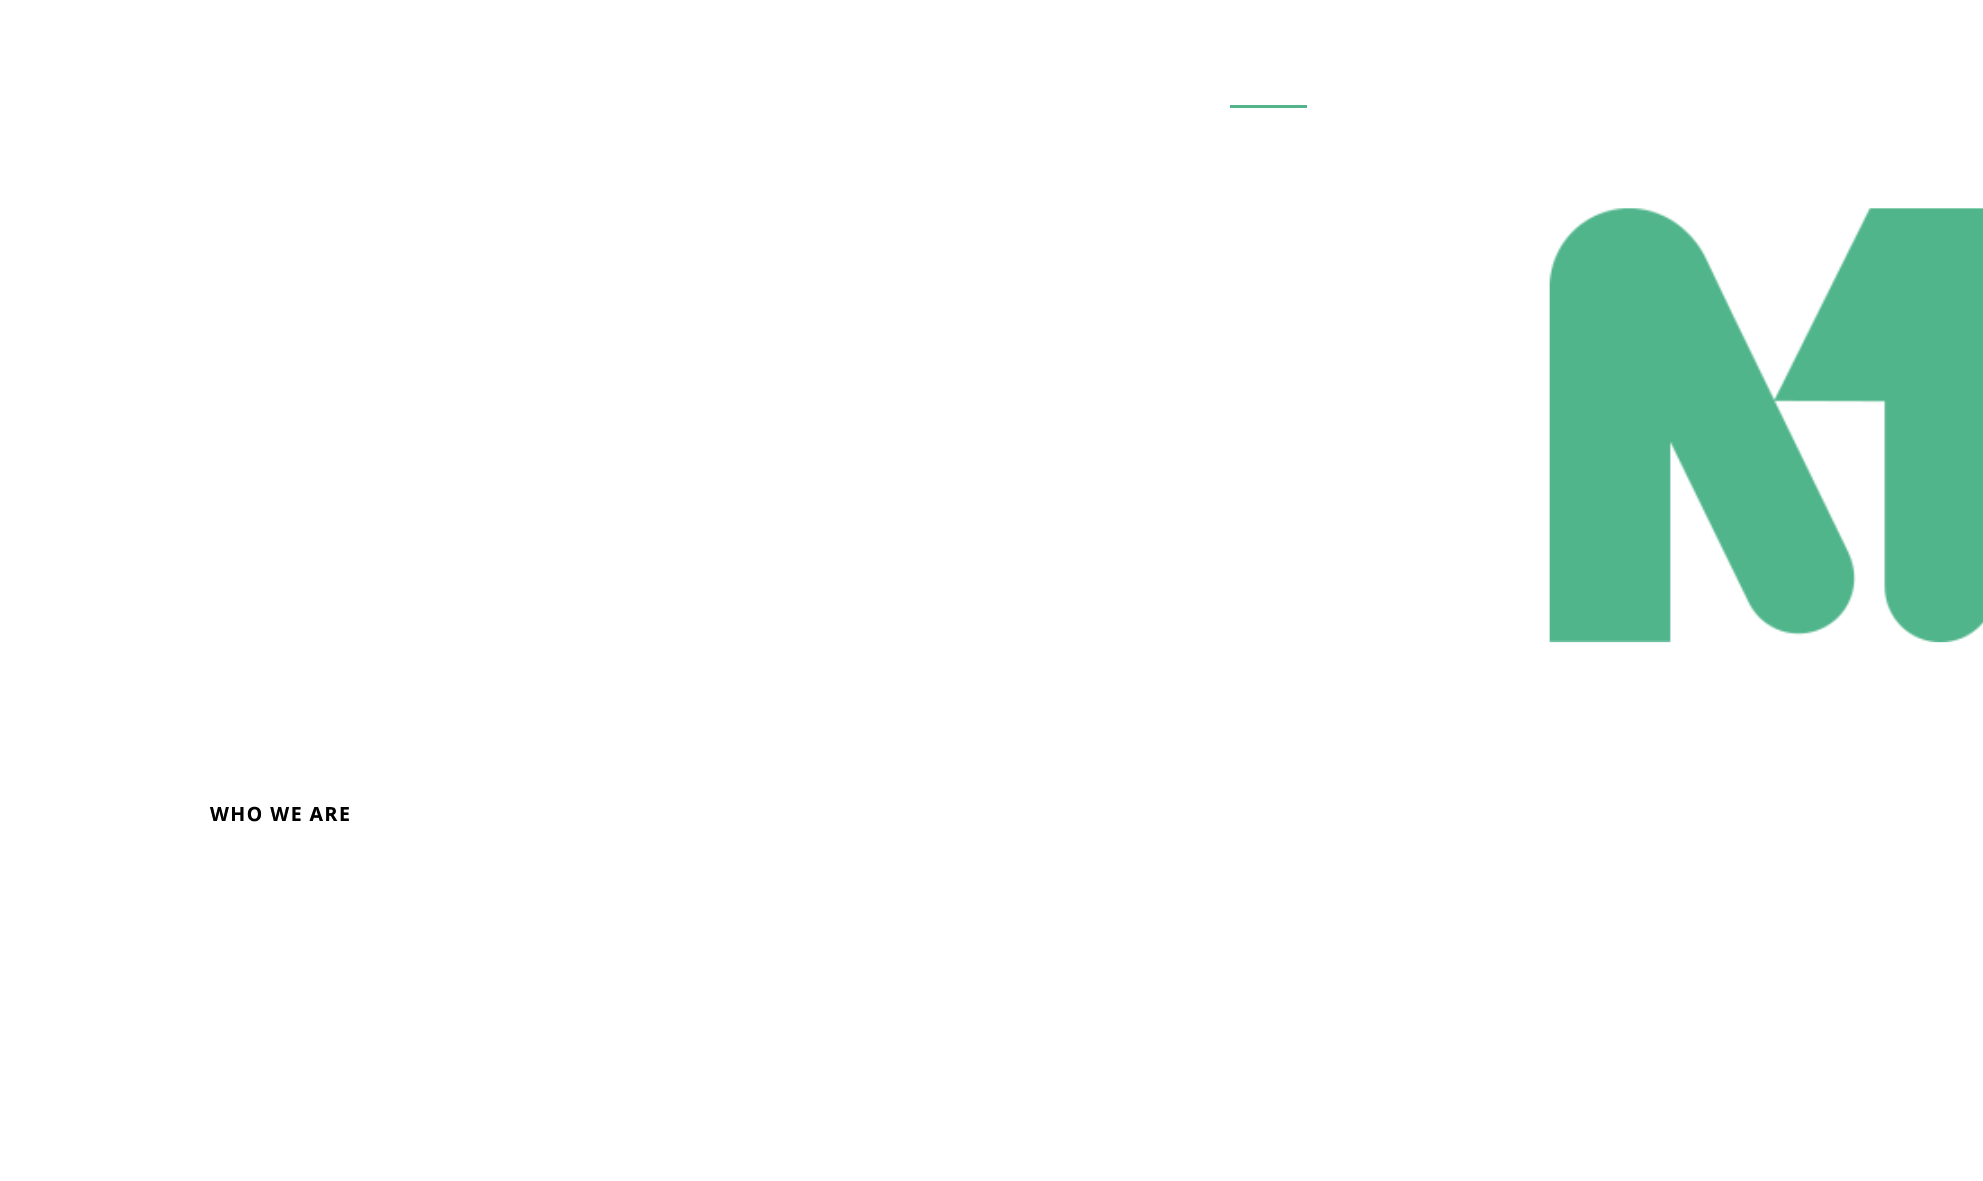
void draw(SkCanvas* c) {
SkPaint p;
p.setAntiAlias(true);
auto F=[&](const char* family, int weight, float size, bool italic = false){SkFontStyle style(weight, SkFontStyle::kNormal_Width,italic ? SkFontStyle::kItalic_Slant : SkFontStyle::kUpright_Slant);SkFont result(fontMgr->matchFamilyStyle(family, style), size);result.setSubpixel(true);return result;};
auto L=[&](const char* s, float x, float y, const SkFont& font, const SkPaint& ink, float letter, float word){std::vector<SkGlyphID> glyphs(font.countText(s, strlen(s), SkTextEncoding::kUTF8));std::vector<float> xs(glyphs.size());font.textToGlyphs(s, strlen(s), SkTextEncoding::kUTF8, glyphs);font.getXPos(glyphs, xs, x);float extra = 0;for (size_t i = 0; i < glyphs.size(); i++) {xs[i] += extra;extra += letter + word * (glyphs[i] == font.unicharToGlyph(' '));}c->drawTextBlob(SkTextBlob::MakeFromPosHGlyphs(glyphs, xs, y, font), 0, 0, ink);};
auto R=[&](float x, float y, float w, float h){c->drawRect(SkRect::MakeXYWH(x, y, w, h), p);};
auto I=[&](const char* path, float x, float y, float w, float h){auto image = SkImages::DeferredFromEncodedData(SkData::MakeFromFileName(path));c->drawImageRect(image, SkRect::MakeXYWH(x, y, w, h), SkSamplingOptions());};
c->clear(0xffffffff);
p.setColor(0xff53b48b);
R(1230,105,77,3);
I("1.png",1549,208,434,435);
auto f1 = F("Noto Sans",700,19.5);
p.setColor(0xff000000);
L("WHO WE ARE",210,821,f1,p,1.5,0);
}
